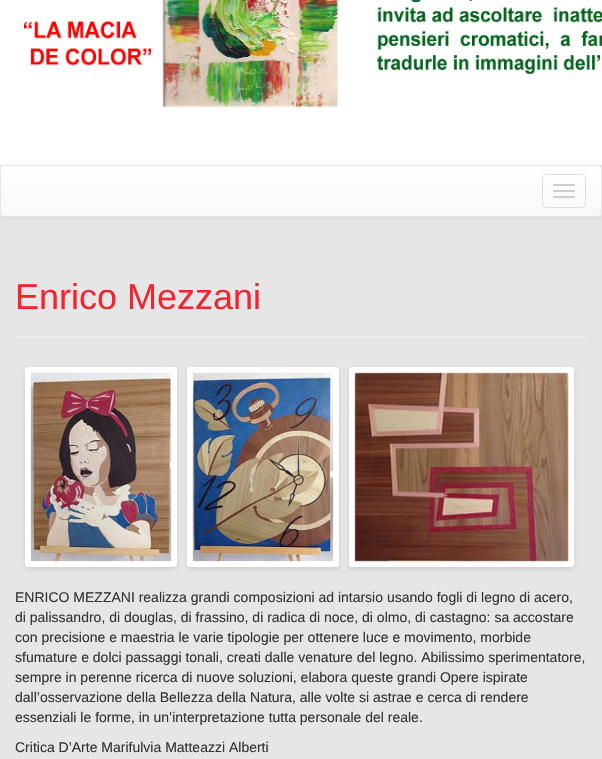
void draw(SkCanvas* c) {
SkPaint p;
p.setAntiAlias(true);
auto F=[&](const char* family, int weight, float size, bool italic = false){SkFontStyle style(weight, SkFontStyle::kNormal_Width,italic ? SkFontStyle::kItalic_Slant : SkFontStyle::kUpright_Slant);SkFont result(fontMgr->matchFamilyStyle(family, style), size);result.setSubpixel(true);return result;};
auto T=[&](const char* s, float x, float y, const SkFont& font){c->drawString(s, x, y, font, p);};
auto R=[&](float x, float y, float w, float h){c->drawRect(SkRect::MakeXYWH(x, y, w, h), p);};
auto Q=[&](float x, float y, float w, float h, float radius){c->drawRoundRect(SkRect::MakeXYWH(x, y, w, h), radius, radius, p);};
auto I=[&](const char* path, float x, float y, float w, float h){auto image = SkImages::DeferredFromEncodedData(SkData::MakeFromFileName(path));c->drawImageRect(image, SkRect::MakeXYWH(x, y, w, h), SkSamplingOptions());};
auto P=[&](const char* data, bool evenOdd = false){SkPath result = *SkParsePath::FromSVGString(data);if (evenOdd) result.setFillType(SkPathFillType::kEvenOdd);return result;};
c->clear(0xffe6e6e6);
I("1.png",0,0,602,165);
p.setColor(0x12000000);
p.setMaskFilter(SkMaskFilter::MakeBlur(kNormal_SkBlurStyle, 2.5));
c->drawRoundRect(SkRect::MakeXYWH(0,166,602,52),4,4,p);
p.setMaskFilter(nullptr);
c->save();
c->clipPath(P("M4 165h594c2 0 4 2 4 4v44c0 2-2 4-4 4h-594c-2 0-4-2-4-4v-44c0-2 2-4 4-4z"),true);
{
const SkColor colors[] = {0xffffffff,0xfff8f8f8};
const float stops[] = {0,1};
const SkPoint ends[] = {{301,166}, {301,216}};
p.setShader(SkGradientShader::MakeLinear(ends, colors, stops, 2, SkTileMode::kClamp));
p.setAlpha(255);
}
R(0,166,602,50);
c->restore();
p.setStroke(true);
p.setStrokeWidth(1);
p.setShader(nullptr);
p.setColor(0xffe7e7e7);
c->drawRoundRect(SkRect::MakeXYWH(.5,165.5,601,51),3.5,3.5,p);
p.setColor(0xffdddddd);
c->drawRoundRect(SkRect::MakeXYWH(542.5,174.5,43,33),3.5,3.5,p);
p.setStroke(false);
p.setColor(0xffcccccc);
Q(553,184,22,2,1);
Q(553,190,22,2,1);
Q(553,196,22,2,1);
p.setColor(0xffeeeeee);
R(15,336,572,1);
auto f1 = F("Liberation Sans",400,36);
p.setColor(0xfff22430);
T("Enrico Mezzani",15,309,f1);
p.setColor(0x1a000000);
p.setMaskFilter(SkMaskFilter::MakeBlur(kNormal_SkBlurStyle, 2));
c->drawRoundRect(SkRect::MakeXYWH(25,369,152,200),3,3,p);
p.setMaskFilter(nullptr);
p.setColor(0xffffffff);
c->drawPath(P("M28 367c-2 0-3 1-3 3v194c0 2 1 3 3 3h146c2 0 3-1 3-3v-194c0-2-1-3-3-3zm3 6v188h140v-188z",true),p);
I("2.png",30,372,142,190);
p.setColor(0x1a000000);
p.setMaskFilter(SkMaskFilter::MakeBlur(kNormal_SkBlurStyle, 2));
c->drawRoundRect(SkRect::MakeXYWH(187,369,152,200),3,3,p);
p.setMaskFilter(nullptr);
p.setColor(0xffffffff);
c->drawPath(P("M190 367c-2 0-3 1-3 3v194c0 2 1 3 3 3h146c2 0 3-1 3-3v-194c0-2-1-3-3-3zm3 6v188h140v-188z",true),p);
I("3.png",192,372,142,190);
p.setColor(0x1a000000);
p.setMaskFilter(SkMaskFilter::MakeBlur(kNormal_SkBlurStyle, 2));
c->drawRoundRect(SkRect::MakeXYWH(349,369,225,200),3,3,p);
p.setMaskFilter(nullptr);
p.setColor(0xffffffff);
c->drawPath(P("M352 367c-2 0-3 1-3 3v194c0 2 1 3 3 3h219c2 0 3-1 3-3v-194c0-2-1-3-3-3zm3 6v188h213v-188z",true),p);
I("4.png",354,372,215,190);
auto f2 = F("Liberation Sans",400,14);
p.setColor(0xff333333);
T("ENRICO MEZZANI realizza grandi composizioni ad intarsio usando fogli di legno di acero,",15,602,f2);
T("di palissandro, di douglas, di frassino, di radica di noce, di olmo, di castagno: sa accostare",15,622,f2);
T("con precisione e maestria le varie tipologie per ottenere luce e movimento, morbide",15,642,f2);
T("sfumature e dolci passaggi tonali, creati dalle venature del legno. Abilissimo sperimentatore,",15,662,f2);
T("sempre in perenne ricerca di nuove soluzioni, elabora queste grandi Opere ispirate",15,682,f2);
T("dall’osservazione della Bellezza della Natura, alle volte si astrae e cerca di rendere",15,702,f2);
T("essenziali le forme, in un’interpretazione tutta personale del reale.",15,722,f2);
T("Critica D’Arte Marifulvia Matteazzi Alberti",15,752,f2);
}
